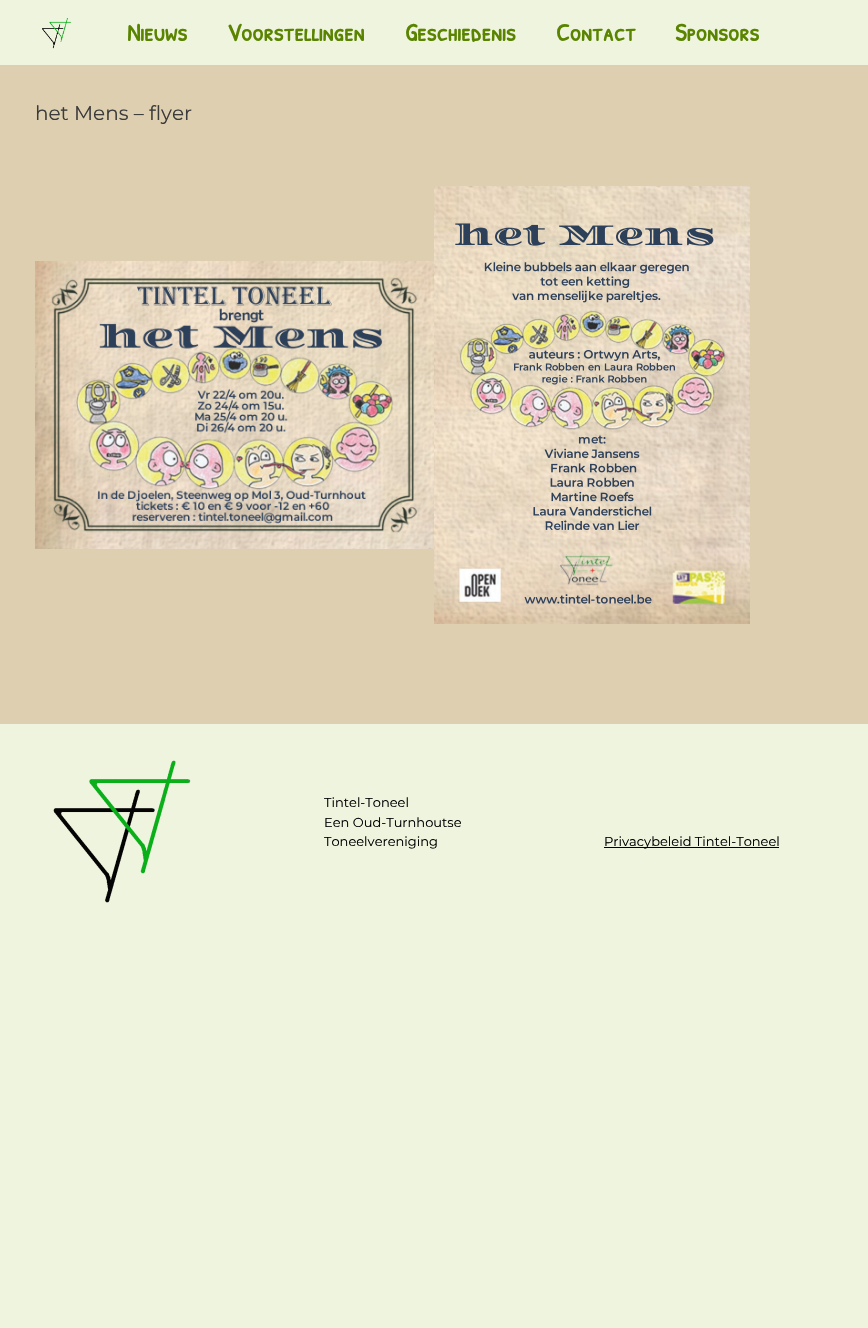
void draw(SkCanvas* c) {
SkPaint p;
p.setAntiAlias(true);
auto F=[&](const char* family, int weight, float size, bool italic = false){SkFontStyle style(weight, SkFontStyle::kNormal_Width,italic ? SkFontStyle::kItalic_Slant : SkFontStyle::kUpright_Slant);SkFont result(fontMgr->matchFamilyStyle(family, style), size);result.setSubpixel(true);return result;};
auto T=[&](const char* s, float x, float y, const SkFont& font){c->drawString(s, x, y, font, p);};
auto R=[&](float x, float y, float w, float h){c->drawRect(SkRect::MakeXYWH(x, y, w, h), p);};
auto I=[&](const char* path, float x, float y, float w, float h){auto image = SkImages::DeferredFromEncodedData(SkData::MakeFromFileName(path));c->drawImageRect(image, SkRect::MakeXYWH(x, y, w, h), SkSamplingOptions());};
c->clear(0xffeef4de);
I("1.png",42,18,30,31);
auto f1 = F("Patrick Hand SC",700,25);
p.setColor(0xff5a8400);
T("Nieuws",127,41,f1);
T("Voorstellingen",227,41,f1);
T("Geschiedenis",405,41,f1);
T("Contact",556,41,f1);
T("Sponsors",675,41,f1);
p.setColor(0xffddcfaf);
R(0,65,868,659);
auto f2 = F("Montserrat",100,20);
p.setColor(0xff3b3b3b);
T("het Mens – flyer",35,120,f2);
I("2.png",35,261,399,288);
I("3.png",434,186,316,438);
I("4.png",53,760,138,143);
auto f3 = F("Montserrat",100,13);
p.setColor(0xff000000);
T("Tintel-Toneel",324,807,f3);
T("Een Oud-Turnhoutse",324,827,f3);
T("Toneelvereniging",324,846,f3);
R(604,847,175,1);
T("Privacybeleid Tintel-Toneel",604,846,f3);
}
